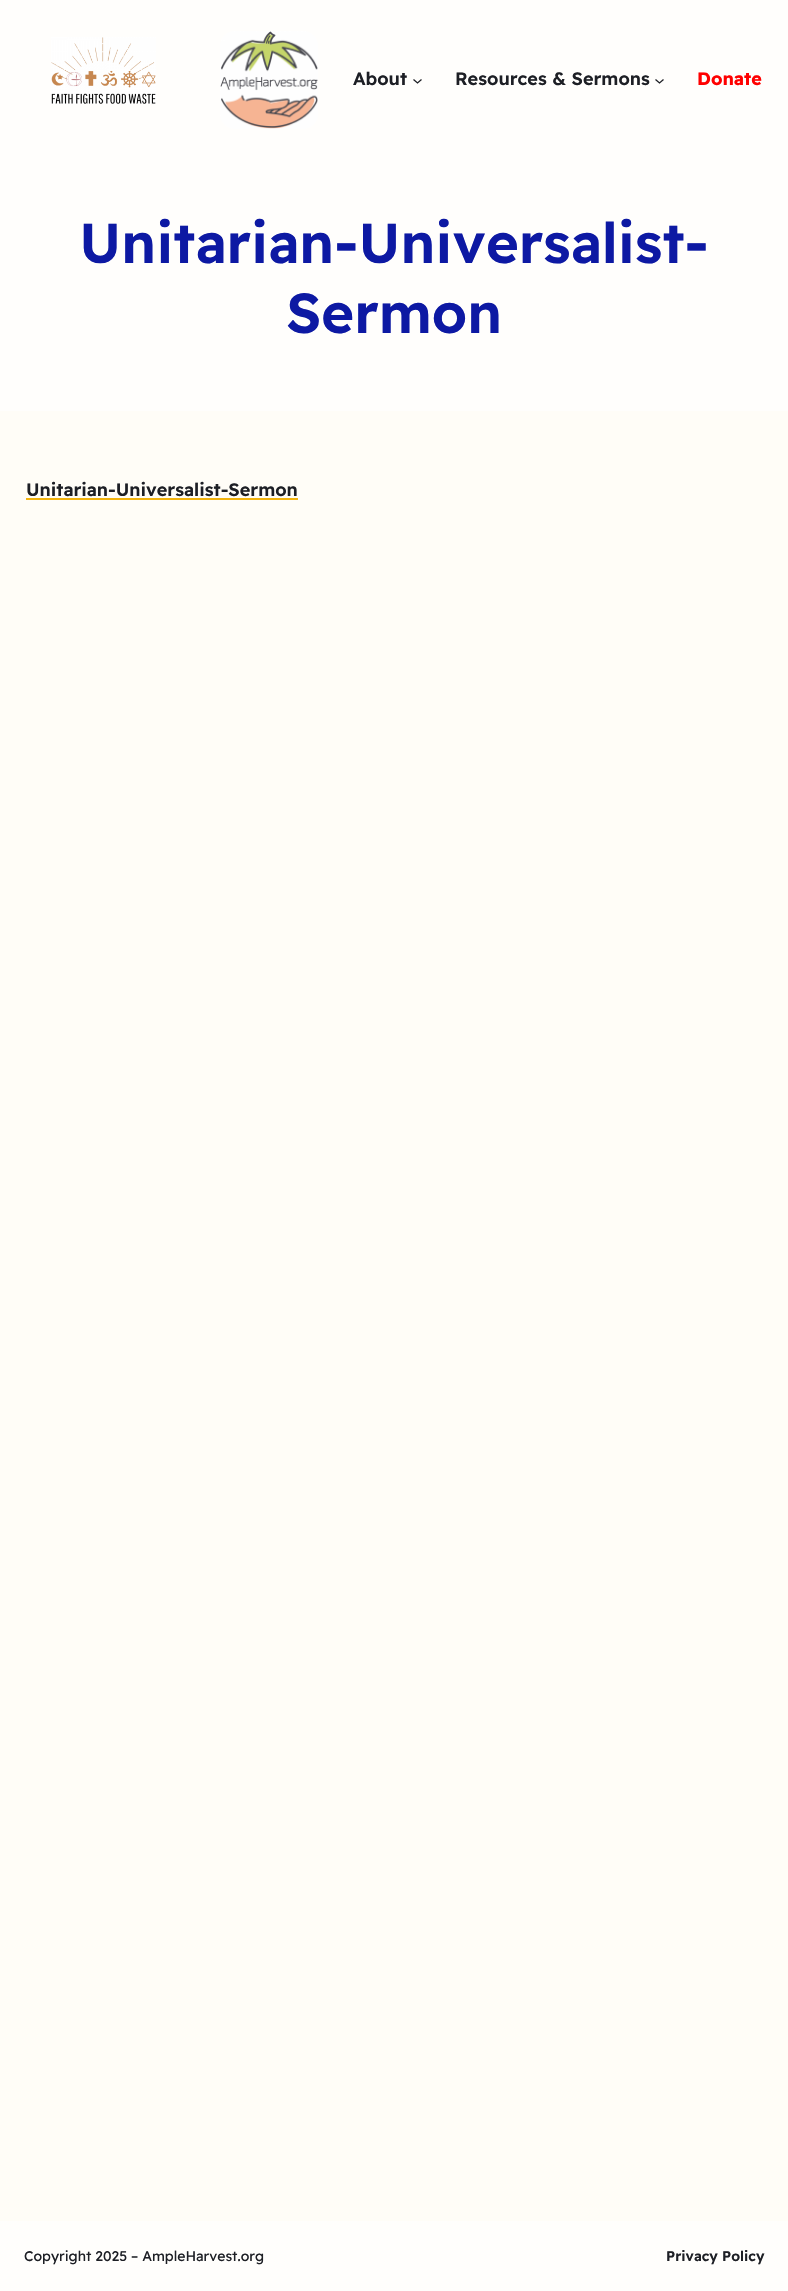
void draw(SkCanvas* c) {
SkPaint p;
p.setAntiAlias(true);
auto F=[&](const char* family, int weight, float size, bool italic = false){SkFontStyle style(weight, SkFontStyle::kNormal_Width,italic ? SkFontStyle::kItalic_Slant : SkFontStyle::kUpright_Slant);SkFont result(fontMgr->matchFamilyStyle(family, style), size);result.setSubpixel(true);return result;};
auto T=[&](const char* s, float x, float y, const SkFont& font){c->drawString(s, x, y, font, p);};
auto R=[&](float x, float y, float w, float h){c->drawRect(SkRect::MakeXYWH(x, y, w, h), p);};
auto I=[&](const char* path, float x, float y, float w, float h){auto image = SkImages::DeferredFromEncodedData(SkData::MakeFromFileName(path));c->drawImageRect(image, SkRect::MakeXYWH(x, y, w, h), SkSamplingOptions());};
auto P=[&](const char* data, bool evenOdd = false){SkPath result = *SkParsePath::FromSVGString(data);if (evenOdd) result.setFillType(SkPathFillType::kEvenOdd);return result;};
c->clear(0xfffffdf7);
p.setColor(0xfffffefc);
R(0,0,788,411);
I("1.png",51,37,105,67);
I("2.png",220,31,98,98);
auto f1 = F("Readex Pro",600,18);
p.setColor(0xff1d1f25);
T("About",353,85,f1);
p.setStroke(true);
p.setStrokeWidth(1.3);
c->drawPath(P("M413.5 79.5l4 3.5l4-3.5"),p);
p.setStroke(false);
T("Resources & Sermons",455,85,f1);
p.setStroke(true);
c->drawPath(P("M655.5 79.5l4 3.5l4-3.5"),p);
auto f2 = F("Readex Pro",700,18);
p.setStroke(false);
p.setColor(0xffff0000);
T("Donate",697,85,f2);
auto f3 = F("Readex Pro",600,56);
p.setColor(0xff0d19a3);
T("Unitarian-Universalist-",79,263,f3);
T("Sermon",286,333,f3);
p.setColor(0xff1d1f25);
T("Unitarian-Universalist-Sermon",26,496,f1);
p.setColor(0xfff2b30d);
R(26,498,272,2);
p.setColor(0xfffffefc);
R(0,2221,788,70);
auto f4 = F("Readex Pro",400,14);
p.setColor(0xff1d1f25);
T("Copyright 2025 – AmpleHarvest.org",24,2261,f4);
auto f5 = F("Readex Pro",600,14);
T("Privacy Policy",666,2261,f5);
}
